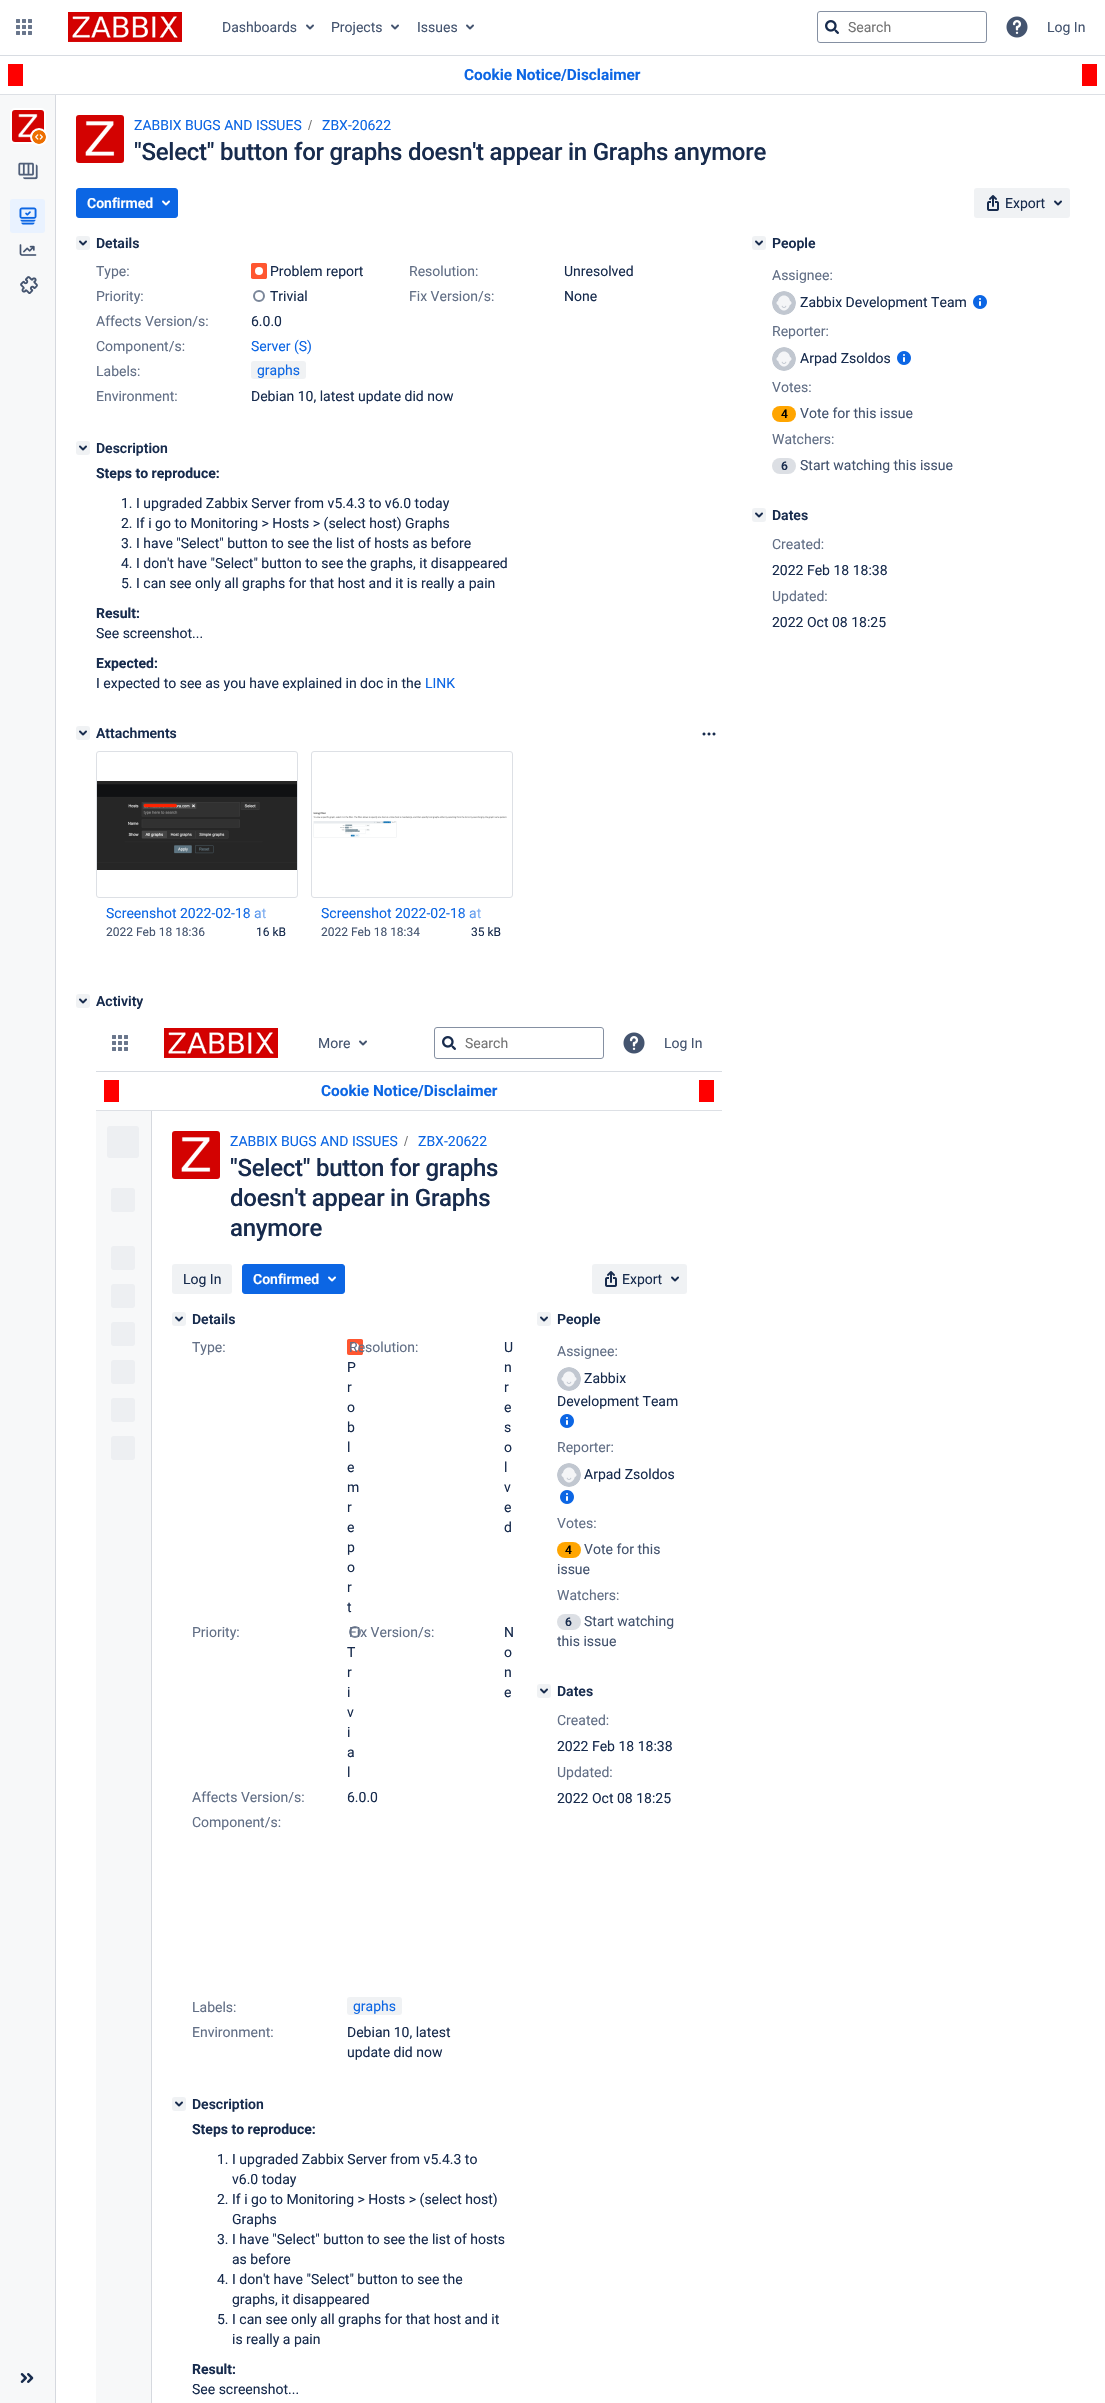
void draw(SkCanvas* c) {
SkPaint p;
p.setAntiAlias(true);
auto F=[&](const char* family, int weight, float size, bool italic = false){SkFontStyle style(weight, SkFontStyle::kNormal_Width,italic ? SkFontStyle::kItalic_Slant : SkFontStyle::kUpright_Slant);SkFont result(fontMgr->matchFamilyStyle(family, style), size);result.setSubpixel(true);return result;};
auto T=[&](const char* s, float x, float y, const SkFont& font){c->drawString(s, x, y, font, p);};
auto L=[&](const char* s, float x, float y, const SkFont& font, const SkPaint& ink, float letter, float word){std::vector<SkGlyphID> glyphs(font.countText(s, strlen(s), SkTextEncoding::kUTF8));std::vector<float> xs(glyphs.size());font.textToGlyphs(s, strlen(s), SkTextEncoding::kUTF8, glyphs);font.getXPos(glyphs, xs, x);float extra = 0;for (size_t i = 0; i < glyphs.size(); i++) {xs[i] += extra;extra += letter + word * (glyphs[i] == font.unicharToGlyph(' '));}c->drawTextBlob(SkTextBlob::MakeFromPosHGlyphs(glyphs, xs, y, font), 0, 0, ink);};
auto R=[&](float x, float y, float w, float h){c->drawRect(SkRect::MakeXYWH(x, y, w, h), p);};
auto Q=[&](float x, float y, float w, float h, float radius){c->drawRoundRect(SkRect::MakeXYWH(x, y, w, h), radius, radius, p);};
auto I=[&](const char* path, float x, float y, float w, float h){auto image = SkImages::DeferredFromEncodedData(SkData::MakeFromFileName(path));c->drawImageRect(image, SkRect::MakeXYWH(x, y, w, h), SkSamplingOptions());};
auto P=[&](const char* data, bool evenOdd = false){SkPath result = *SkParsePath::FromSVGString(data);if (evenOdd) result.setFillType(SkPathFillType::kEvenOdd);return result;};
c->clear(0xffffffff);
p.setColor(0xffd8dce2);
R(0,55,1105,1);
I("1.png",16,19,16,16);
I("2.png",68,12,114,30);
auto f1 = F("Roboto",400,14);
p.setColor(0xff44546f);
T("Dashboards",222,32,f1);
I("3.png",306,24,8,6);
T("Projects",331,32,f1);
I("3.png",391,24,8,6);
T("Issues",417,32,f1);
I("3.png",466,24,8,6);
p.setStroke(true);
p.setStrokeWidth(1);
p.setColor(0xff8590a2);
c->drawRoundRect(SkRect::MakeXYWH(817.5,11.5,169,31),2.5,2.5,p);
I("4.png",825,20,14,14);
p.setStroke(false);
p.setColor(0xff757575);
T("Search",848,32,f1);
I("5.png",1006,16,22,22);
p.setColor(0xff44546f);
T("Log In",1047,32,f1);
p.setColor(0xffdde0e5);
R(0,94,1105,1);
p.setColor(0xffff0000);
R(1082,64,15,22);
R(8,64,15,22);
auto f2 = F("Roboto",700,15.4);
p.setColor(0xff0c66e4);
T("Cookie Notice/Disclaimer",464,80,f2);
p.setColor(0xfff7f8f9);
R(0,95,55,2308);
p.setColor(0xffd6d9df);
R(55,95,1,2308);
p.setStroke(true);
p.setStrokeWidth(2);
p.setColor(0xffffffff);
c->drawRoundRect(SkRect::MakeXYWH(11,109,34,34),4,4,p);
I("6.png",12,110,32,32);
p.setStroke(false);
c->drawCircle(39,137,9,p);
I("7.png",32,130,14,14);
I("8.png",18,162,20,18);
p.setColor(0xffe9f2ff);
Q(10,199,35,34,3);
I("9.png",19,207,18,18);
I("10.png",19,244,18,12);
I("11.png",20,276,18,18);
I("12.png",20,2373,14,10);
I("13.png",76,115,48,48);
p.setColor(0xff0c66e4);
T("ZABBIX BUGS AND ISSUES",134,130,f1);
p.setColor(0xff707070);
c->drawPath(P("M309 130l3-10h-1l-3 10z"),p);
p.setColor(0xff0c66e4);
T("ZBX-20622",322,130,f1);
auto f3 = F("Roboto",500,24);
p.setColor(0xff172b4d);
L("\"Select\" button for graphs doesn't appear in Graphs anymore",134,160,f3,p,-.25,0);
p.setColor(0xff0c66e4);
c->drawRoundRect(SkRect::MakeXYWH(76.5,188.5,101,29),2.5,2.5,p);
p.setStroke(true);
p.setStrokeWidth(1);
c->drawRoundRect(SkRect::MakeXYWH(76.5,188.5,101,29),2.5,2.5,p);
auto f4 = F("Roboto",600,14);
p.setStroke(false);
p.setColor(0xffffffff);
T("Confirmed",87,208,f4);
I("14.png",162,200,8,6);
p.setColor(0xfff0f2f4);
Q(974,188,96,30,3);
I("15.png",987,195,12,16);
p.setColor(0xff172b4d);
T("Export",1005,208,f1);
I("16.png",1054,200,8,6);
p.setColor(0xfff0f2f4);
Q(76,236,14,14,3);
I("17.png",79,240,8,6);
p.setColor(0xff172b4d);
T("Details",96,248,f4);
p.setColor(0xff626f86);
T("Type:",96,276,f1);
I("18.png",251,263,16,16);
p.setColor(0xff172b4d);
T("Problem report",270,276,f1);
p.setColor(0xff626f86);
T("Resolution:",409,276,f1);
p.setColor(0xff172b4d);
T("Unresolved",564,276,f1);
p.setColor(0xff626f86);
T("Priority:",96,301,f1);
p.setStroke(true);
p.setStrokeWidth(2);
p.setColor(0xff7a8699);
c->drawCircle(259,296,5,p);
p.setStroke(false);
p.setColor(0xff172b4d);
T("Trivial",270,301,f1);
p.setColor(0xff626f86);
T("Fix Version/s:",409,301,f1);
p.setColor(0xff172b4d);
T("None",564,301,f1);
p.setColor(0xff626f86);
T("Affects Version/s:",96,326,f1);
p.setColor(0xff172b4d);
T("6.0.0",251,326,f1);
p.setColor(0xff626f86);
T("Component/s:",96,351,f1);
p.setColor(0xff0c66e4);
T("Server (S)",251,351,f1);
p.setColor(0xff626f86);
T("Labels:",96,376,f1);
p.setColor(0xfff0f2f4);
Q(251,361,55,18,3);
p.setColor(0xff0c66e4);
T("graphs",257,375,f1);
p.setColor(0xff626f86);
T("Environment:",96,401,f1);
p.setColor(0xff172b4d);
T("Debian 10, latest update did now",251,401,f1);
p.setColor(0xfff0f2f4);
Q(76,441,14,14,3);
I("17.png",79,445,8,6);
p.setColor(0xff172b4d);
T("Description",96,453,f4);
auto f5 = F("Roboto",700,14);
T("Steps to reproduce:",96,478,f5);
T("1. I upgraded Zabbix Server from v5.4.3 to v6.0 today",121,508,f1);
T("2. If i go to Monitoring > Hosts > (select host) Graphs",121,528,f1);
T("3. I have \"Select\" button to see the list of hosts as before",121,548,f1);
T("4. I don't have \"Select\" button to see the graphs, it disappeared",121,568,f1);
T("5. I can see only all graphs for that host and it is really a pain",121,588,f1);
T("Result:",96,618,f5);
T("See screenshot...",96,638,f1);
T("Expected:",96,668,f5);
T("I expected to see as you have explained in doc in the",96,688,f1);
p.setColor(0xff0c66e4);
T("LINK",425,688,f1);
p.setColor(0xfff0f2f4);
Q(76,726,14,14,3);
I("17.png",79,730,8,6);
p.setColor(0xff172b4d);
T("Attachments",96,738,f4);
I("19.png",702,732,14,4);
p.setStroke(true);
p.setStrokeWidth(1);
p.setColor(0xffdde0e5);
c->drawRoundRect(SkRect::MakeXYWH(96.5,751.5,201,146),2.5,2.5,p);
I("20.png",97,781,200,89);
p.setStroke(false);
p.setColor(0xff0c66e4);
T("Screenshot 2022-02-18 at",106,918,f1);
{
const SkColor colors[] = {0x00ffffff,0xffffffff};
const float stops[] = {0,1};
const SkPoint ends[] = {{244,914}, {286,914}};
p.setShader(SkGradientShader::MakeLinear(ends, colors, stops, 2, SkTileMode::kClamp));
p.setAlpha(255);
}
R(245,908,21,11);
auto f6 = F("Roboto",400,12);
p.setShader(nullptr);
p.setColor(0xff44546f);
T("2022 Feb 18 18:36",106,936,f6);
p.setColor(0xff172b4d);
T("16 kB",256,936,f6);
p.setStroke(true);
p.setColor(0xffdde0e5);
c->drawRoundRect(SkRect::MakeXYWH(311.5,751.5,201,146),2.5,2.5,p);
I("21.png",313,812,194,26);
p.setStroke(false);
p.setColor(0xff0c66e4);
T("Screenshot 2022-02-18 at",321,918,f1);
{
const SkColor colors[] = {0x00ffffff,0xffffffff};
const float stops[] = {0,1};
const SkPoint ends[] = {{459,914}, {501,914}};
p.setShader(SkGradientShader::MakeLinear(ends, colors, stops, 2, SkTileMode::kClamp));
p.setAlpha(255);
}
R(460,908,21,11);
p.setShader(nullptr);
p.setColor(0xff44546f);
T("2022 Feb 18 18:34",321,936,f6);
p.setColor(0xff172b4d);
T("35 kB",471,936,f6);
p.setColor(0xfff0f2f4);
Q(76,994,14,14,3);
I("17.png",79,998,8,6);
p.setColor(0xff172b4d);
T("Activity",96,1006,f4);
p.setColor(0xffd8dce2);
R(96,1071,626,1);
I("1.png",112,1035,16,16);
I("2.png",164,1028,114,30);
p.setColor(0xff44546f);
T("More",318,1048,f1);
I("3.png",359,1040,8,6);
p.setStroke(true);
p.setColor(0xff8590a2);
c->drawRoundRect(SkRect::MakeXYWH(434.5,1027.5,169,31),2.5,2.5,p);
I("4.png",442,1036,14,14);
p.setStroke(false);
p.setColor(0xff757575);
T("Search",465,1048,f1);
I("5.png",623,1032,22,22);
p.setColor(0xff44546f);
T("Log In",664,1048,f1);
p.setColor(0xffdde0e5);
R(96,1110,626,1);
p.setColor(0xffff0000);
R(699,1080,15,22);
R(104,1080,15,22);
p.setColor(0xff0c66e4);
T("Cookie Notice/Disclaimer",321,1096,f2);
p.setColor(0xfff7f8f9);
R(96,1111,55,1292);
p.setColor(0xffd6d9df);
R(151,1111,1,1292);
p.setColor(0xffedeff2);
Q(107,1126,32,32,3);
Q(111,1188,24,24,3);
Q(111,1246,24,24,3);
Q(111,1284,24,24,3);
Q(111,1322,24,24,3);
Q(111,1360,24,24,3);
Q(111,1398,24,24,3);
Q(111,1436,24,24,3);
I("13.png",172,1131,48,48);
p.setColor(0xff0c66e4);
T("ZABBIX BUGS AND ISSUES",230,1146,f1);
p.setColor(0xff707070);
c->drawPath(P("M405 1146l3-10h-1l-3 10z"),p);
p.setColor(0xff0c66e4);
T("ZBX-20622",418,1146,f1);
p.setColor(0xff172b4d);
L("\"Select\" button for graphs",230,1176,f3,p,-.25,0);
L("doesn't appear in Graphs",230,1206,f3,p,-.25,0);
L("anymore",230,1236,f3,p,-.25,0);
p.setColor(0xfff0f2f4);
Q(172,1264,60,30,3);
p.setColor(0xff172b4d);
T("Log In",183,1284,f1);
p.setColor(0xff0c66e4);
c->drawRoundRect(SkRect::MakeXYWH(242.5,1264.5,102,29),2.5,2.5,p);
p.setStroke(true);
c->drawRoundRect(SkRect::MakeXYWH(242.5,1264.5,102,29),2.5,2.5,p);
p.setStroke(false);
p.setColor(0xffffffff);
T("Confirmed",253,1284,f4);
I("14.png",328,1276,8,6);
p.setColor(0xfff0f2f4);
Q(592,1264,95,30,3);
I("15.png",605,1271,12,16);
p.setColor(0xff172b4d);
T("Export",622,1284,f1);
I("16.png",671,1276,8,6);
p.setColor(0xfff0f2f4);
Q(172,1312,14,14,3);
I("17.png",175,1316,8,6);
p.setColor(0xff172b4d);
T("Details",192,1324,f4);
p.setColor(0xff626f86);
T("Type:",192,1352,f1);
I("22.png",347,1339,16,16);
p.setColor(0xff172b4d);
T("P",347,1372,f1);
T("r",347,1392,f1);
T("o",347,1412,f1);
T("b",347,1432,f1);
T("l",347,1452,f1);
T("e",347,1472,f1);
T("m",347,1492,f1);
T("r",347,1512,f1);
T("e",347,1532,f1);
T("p",347,1552,f1);
T("o",347,1572,f1);
T("r",347,1592,f1);
T("t",347,1612,f1);
p.setColor(0xff626f86);
T("Resolution:",349,1352,f1);
p.setColor(0xff172b4d);
T("U",504,1352,f1);
T("n",504,1372,f1);
T("r",504,1392,f1);
T("e",504,1412,f1);
T("s",504,1432,f1);
T("o",504,1452,f1);
T("l",504,1472,f1);
T("v",504,1492,f1);
T("e",504,1512,f1);
T("d",504,1532,f1);
p.setColor(0xff626f86);
T("Priority:",192,1637,f1);
p.setStroke(true);
p.setStrokeWidth(2);
p.setColor(0xff7a8699);
c->drawCircle(355,1632,5,p);
p.setStroke(false);
p.setColor(0xff172b4d);
T("T",347,1657,f1);
T("r",347,1677,f1);
T("i",347,1697,f1);
T("v",347,1717,f1);
T("i",347,1737,f1);
T("a",347,1757,f1);
T("l",347,1777,f1);
p.setColor(0xff626f86);
T("Fix Version/s:",349,1637,f1);
p.setColor(0xff172b4d);
T("N",504,1637,f1);
T("o",504,1657,f1);
T("n",504,1677,f1);
T("e",504,1697,f1);
p.setColor(0xff626f86);
T("Affects Version/s:",192,1802,f1);
p.setColor(0xff172b4d);
T("6.0.0",347,1802,f1);
p.setColor(0xff626f86);
T("Component/s:",192,1827,f1);
T("Labels:",192,2012,f1);
p.setColor(0xfff0f2f4);
Q(347,1997,55,18,3);
p.setColor(0xff0c66e4);
T("graphs",353,2011,f1);
p.setColor(0xff626f86);
T("Environment:",192,2037,f1);
p.setColor(0xff172b4d);
T("Debian 10, latest",347,2037,f1);
T("update did now",347,2057,f1);
p.setColor(0xfff0f2f4);
Q(172,2097,14,14,3);
I("17.png",175,2101,8,6);
p.setColor(0xff172b4d);
T("Description",192,2109,f4);
T("Steps to reproduce:",192,2134,f5);
T("1. I upgraded Zabbix Server from v5.4.3 to",217,2164,f1);
T("v6.0 today",232,2184,f1);
T("2. If i go to Monitoring > Hosts > (select host)",217,2204,f1);
T("Graphs",232,2224,f1);
T("3. I have \"Select\" button to see the list of hosts",217,2244,f1);
T("as before",232,2264,f1);
T("4. I don't have \"Select\" button to see the",217,2284,f1);
T("graphs, it disappeared",232,2304,f1);
T("5. I can see only all graphs for that host and it",217,2324,f1);
T("is really a pain",232,2344,f1);
T("Result:",192,2374,f5);
T("See screenshot...",192,2394,f1);
p.setColor(0xfff0f2f4);
Q(537,1312,14,14,3);
I("17.png",540,1316,8,6);
p.setColor(0xff172b4d);
T("People",557,1324,f4);
p.setColor(0xff626f86);
T("Assignee:",557,1356,f1);
I("23.png",557,1367,24,24);
p.setColor(0xff172b4d);
T("Zabbix",584,1383,f1);
T("Development Team",557,1406,f1);
I("24.png",560,1414,14,14);
p.setColor(0xff626f86);
T("Reporter:",557,1452,f1);
I("23.png",557,1463,24,24);
p.setColor(0xff172b4d);
T("Arpad Zsoldos",584,1479,f1);
I("24.png",560,1490,14,14);
p.setColor(0xff626f86);
T("Votes:",557,1528,f1);
p.setColor(0xffffa500);
Q(557,1542,24,16,8);
auto f7 = F("Roboto",600,12);
p.setColor(0xff000000);
T("4",565,1554,f7);
p.setColor(0xff44546f);
T("Vote for this",584,1554,f1);
T("issue",557,1574,f1);
p.setColor(0xff626f86);
T("Watchers:",557,1600,f1);
p.setColor(0xffdcdfe4);
Q(557,1614,24,16,8);
p.setColor(0xff172b4d);
T("6",565,1626,f7);
p.setColor(0xff44546f);
T("Start watching",584,1626,f1);
T("this issue",557,1646,f1);
p.setColor(0xfff0f2f4);
Q(537,1684,14,14,3);
I("17.png",540,1688,8,6);
p.setColor(0xff172b4d);
T("Dates",557,1696,f4);
p.setColor(0xff626f86);
T("Created:",557,1725,f1);
p.setColor(0xff172b4d);
T("2022 Feb 18 18:38",557,1751,f1);
p.setColor(0xff626f86);
T("Updated:",557,1777,f1);
p.setColor(0xff172b4d);
T("2022 Oct 08 18:25",557,1803,f1);
p.setColor(0xfff0f2f4);
Q(752,236,14,14,3);
I("17.png",755,240,8,6);
p.setColor(0xff172b4d);
T("People",772,248,f4);
p.setColor(0xff626f86);
T("Assignee:",772,280,f1);
I("23.png",772,291,24,24);
p.setColor(0xff172b4d);
T("Zabbix Development Team",800,307,f1);
I("24.png",973,295,14,14);
p.setColor(0xff626f86);
T("Reporter:",772,336,f1);
I("23.png",772,347,24,24);
p.setColor(0xff172b4d);
T("Arpad Zsoldos",800,363,f1);
I("24.png",897,351,14,14);
p.setColor(0xff626f86);
T("Votes:",772,392,f1);
p.setColor(0xffffa500);
Q(772,406,24,16,8);
p.setColor(0xff000000);
T("4",781,418,f7);
p.setColor(0xff44546f);
T("Vote for this issue",800,418,f1);
p.setColor(0xff626f86);
T("Watchers:",772,444,f1);
p.setColor(0xffdcdfe4);
Q(772,458,24,16,8);
p.setColor(0xff172b4d);
T("6",781,470,f7);
p.setColor(0xff44546f);
T("Start watching this issue",800,470,f1);
p.setColor(0xfff0f2f4);
Q(752,508,14,14,3);
I("17.png",755,512,8,6);
p.setColor(0xff172b4d);
T("Dates",772,520,f4);
p.setColor(0xff626f86);
T("Created:",772,549,f1);
p.setColor(0xff172b4d);
T("2022 Feb 18 18:38",772,575,f1);
p.setColor(0xff626f86);
T("Updated:",772,601,f1);
p.setColor(0xff172b4d);
T("2022 Oct 08 18:25",772,627,f1);
}
